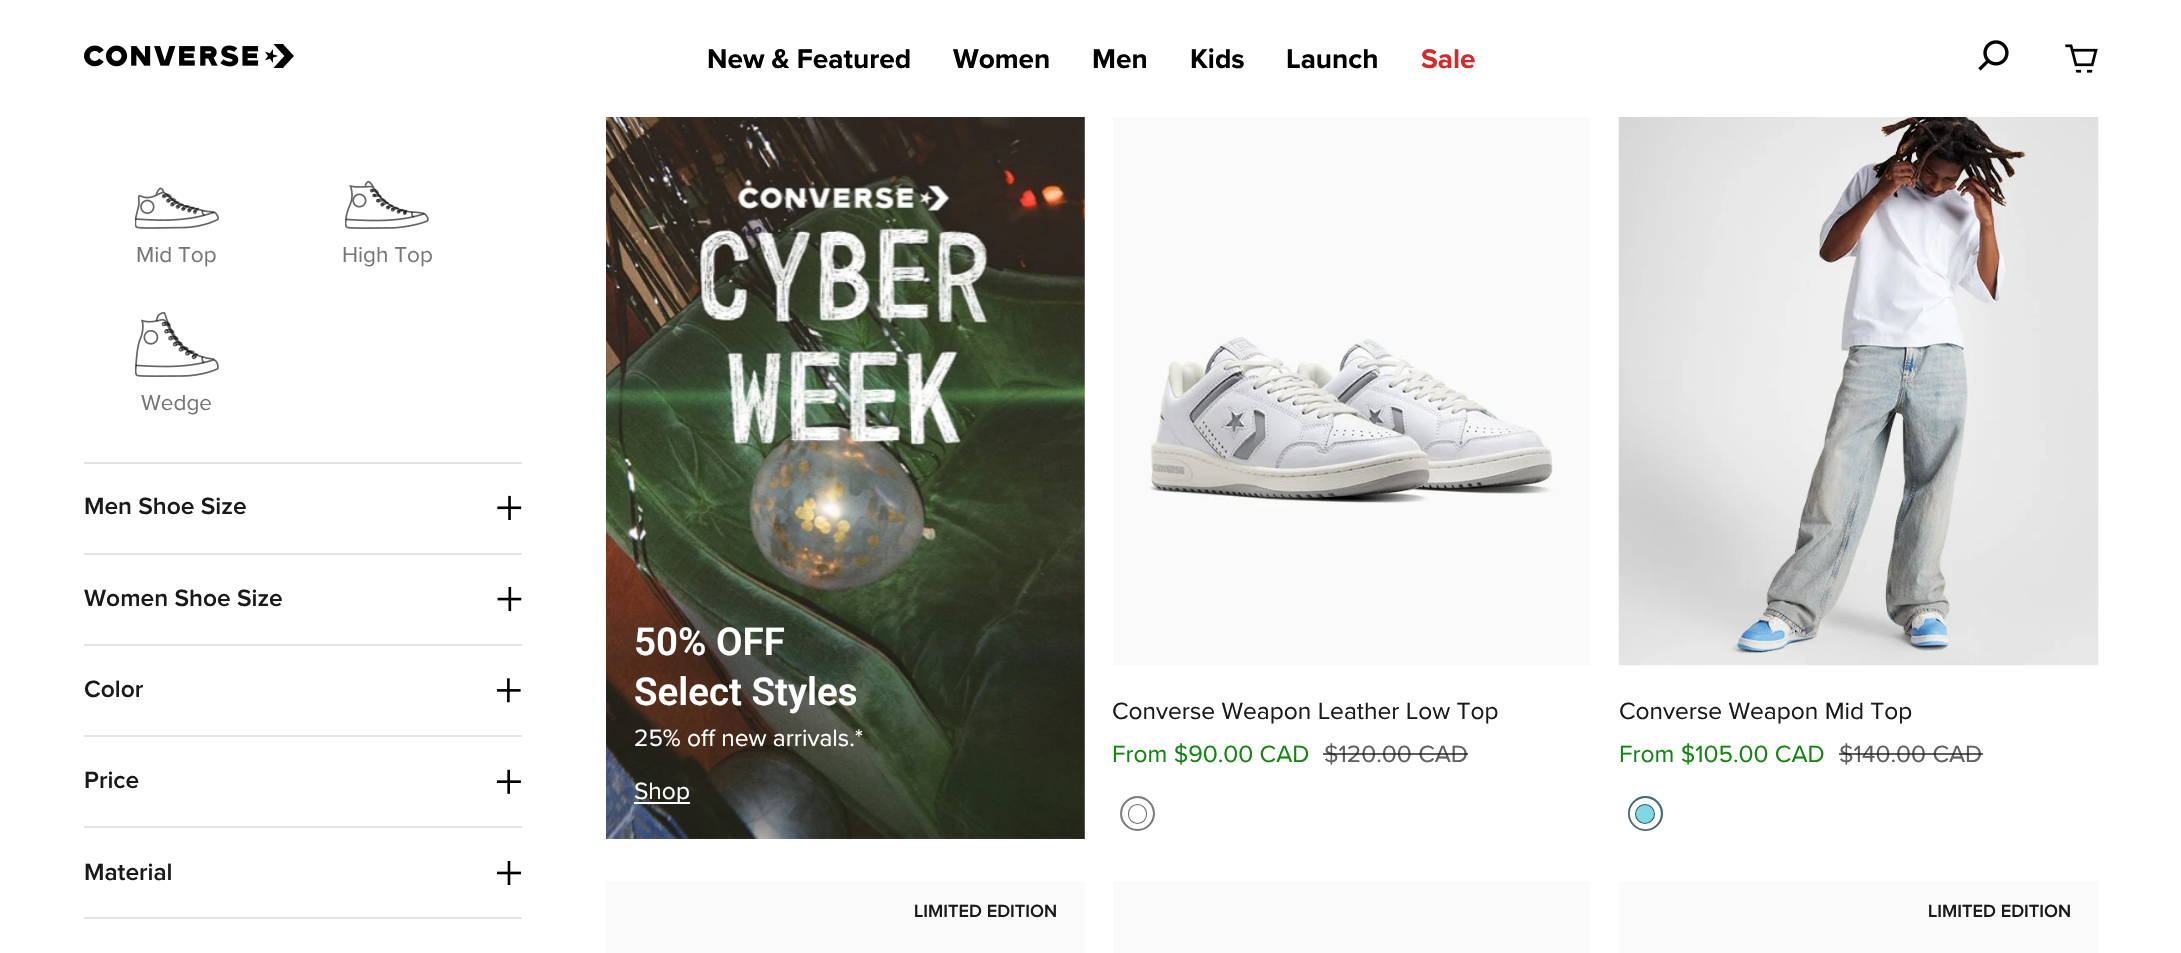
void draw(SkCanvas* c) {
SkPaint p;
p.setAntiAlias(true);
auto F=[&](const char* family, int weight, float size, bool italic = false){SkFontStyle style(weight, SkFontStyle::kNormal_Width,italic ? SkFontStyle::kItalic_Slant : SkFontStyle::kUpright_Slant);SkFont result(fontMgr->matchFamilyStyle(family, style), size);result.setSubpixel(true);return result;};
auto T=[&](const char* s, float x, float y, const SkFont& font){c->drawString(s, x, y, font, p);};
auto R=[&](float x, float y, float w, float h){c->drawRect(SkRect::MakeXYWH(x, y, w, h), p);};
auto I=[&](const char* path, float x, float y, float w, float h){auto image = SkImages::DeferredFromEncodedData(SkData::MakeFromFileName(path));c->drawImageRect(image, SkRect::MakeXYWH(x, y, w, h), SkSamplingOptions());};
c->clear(0xffffffff);
I("1.png",84,44,210,24);
auto f1 = F("Proxima Nova",700,28);
p.setColor(0xff000000);
T("New & Featured",707,68,f1);
T("Women",953,68,f1);
T("Men",1092,68,f1);
T("Kids",1190,68,f1);
T("Launch",1286,68,f1);
p.setColor(0xffd62929);
T("Sale",1421,68,f1);
I("2.png",1978,40,31,31);
I("3.png",2065,44,33,29);
p.setColor(0xffe4e4e4);
R(84,462,438,2);
I("4.png",135,187,84,42);
auto f2 = F("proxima",400,22.5);
p.setColor(0xff767676);
T("Mid Top",136,262,f2);
I("5.png",345,180,84,49);
T("High Top",342,262,f2);
I("6.png",135,312,84,65);
T("Wedge",141,410,f2);
p.setColor(0xffe4e4e4);
R(84,553,438,2);
auto f3 = F("Proxima Nova",600,24.5);
p.setColor(0xff1a1a1a);
T("Men Shoe Size",84,514,f3);
I("7.png",497,495,25,25);
p.setColor(0xffe4e4e4);
R(84,644,438,2);
p.setColor(0xff1a1a1a);
T("Women Shoe Size",84,606,f3);
I("8.png",497,587,25,25);
p.setColor(0xffe4e4e4);
R(84,735,438,2);
p.setColor(0xff1a1a1a);
T("Color",84,697,f3);
I("9.png",497,678,24,25);
p.setColor(0xffe4e4e4);
R(84,826,438,2);
p.setColor(0xff1a1a1a);
T("Price",84,788,f3);
I("10.png",497,769,24,25);
p.setColor(0xffe4e4e4);
R(84,917,438,2);
p.setColor(0xff1a1a1a);
T("Material",84,880,f3);
I("11.png",497,861,25,24);
I("12.png",606,117,479,722);
auto f4 = F("Roboto",600,38.5);
p.setColor(0xffffffff);
T("50% OFF",634,655,f4);
T("Select Styles",634,705,f4);
auto f5 = F("proxima",400,24.5);
T("25% off new arrivals.*",634,746,f5);
R(634,802,56,2);
T("Shop",634,799,f5);
I("13.png",1113,117,477,548);
p.setColor(0xff1a1a1a);
T("Converse Weapon Leather Low Top",1112,719,f5);
p.setColor(0xff138410);
T("From $90.00 CAD",1112,762,f5);
p.setColor(0xff5f5f5f);
T("$120.00 CAD",1324,762,f5);
p.setColor(0xb31a1a1a);
R(1323,753,145,2);
p.setStroke(true);
p.setStrokeWidth(7);
p.setColor(0xff666666);
c->drawRoundRect(SkRect::MakeXYWH(1125.5,801.5,24,25),12,12,p);
p.setStrokeWidth(6);
p.setColor(0xffffffff);
c->drawRoundRect(SkRect::MakeXYWH(1125,801,25,26),12.5,12.5,p);
p.setStrokeWidth(2);
p.setColor(0x80000000);
c->drawCircle(1137.5,813.5,16.5,p);
I("14.png",1618,117,481,549);
p.setStroke(false);
p.setColor(0xff1a1a1a);
T("Converse Weapon Mid Top",1619,719,f5);
p.setColor(0xff138410);
T("From $105.00 CAD",1619,762,f5);
p.setColor(0xff5f5f5f);
T("$140.00 CAD",1839,762,f5);
p.setColor(0xb31a1a1a);
R(1839,753,144,2);
p.setColor(0xff7ed8e6);
c->drawCircle(1645.5,813.5,17.5,p);
p.setStroke(true);
p.setStrokeWidth(7);
p.setColor(0xff32565c);
c->drawCircle(1645,814,12.5,p);
p.setStrokeWidth(6);
p.setColor(0xffffffff);
c->drawCircle(1645,814,13,p);
p.setStrokeWidth(2);
p.setColor(0x80000000);
c->drawCircle(1645.5,813.5,16.5,p);
p.setStroke(false);
p.setColor(0xfffafafa);
R(606,881,479,72);
auto f6 = F("Proxima Nova",600,18.25);
p.setColor(0xff1a1a1a);
T("LIMITED EDITION",914,917,f6);
p.setColor(0xfffafafa);
R(1113,881,477,72);
R(1619,881,479,72);
p.setColor(0xff1a1a1a);
T("LIMITED EDITION",1928,917,f6);
}
